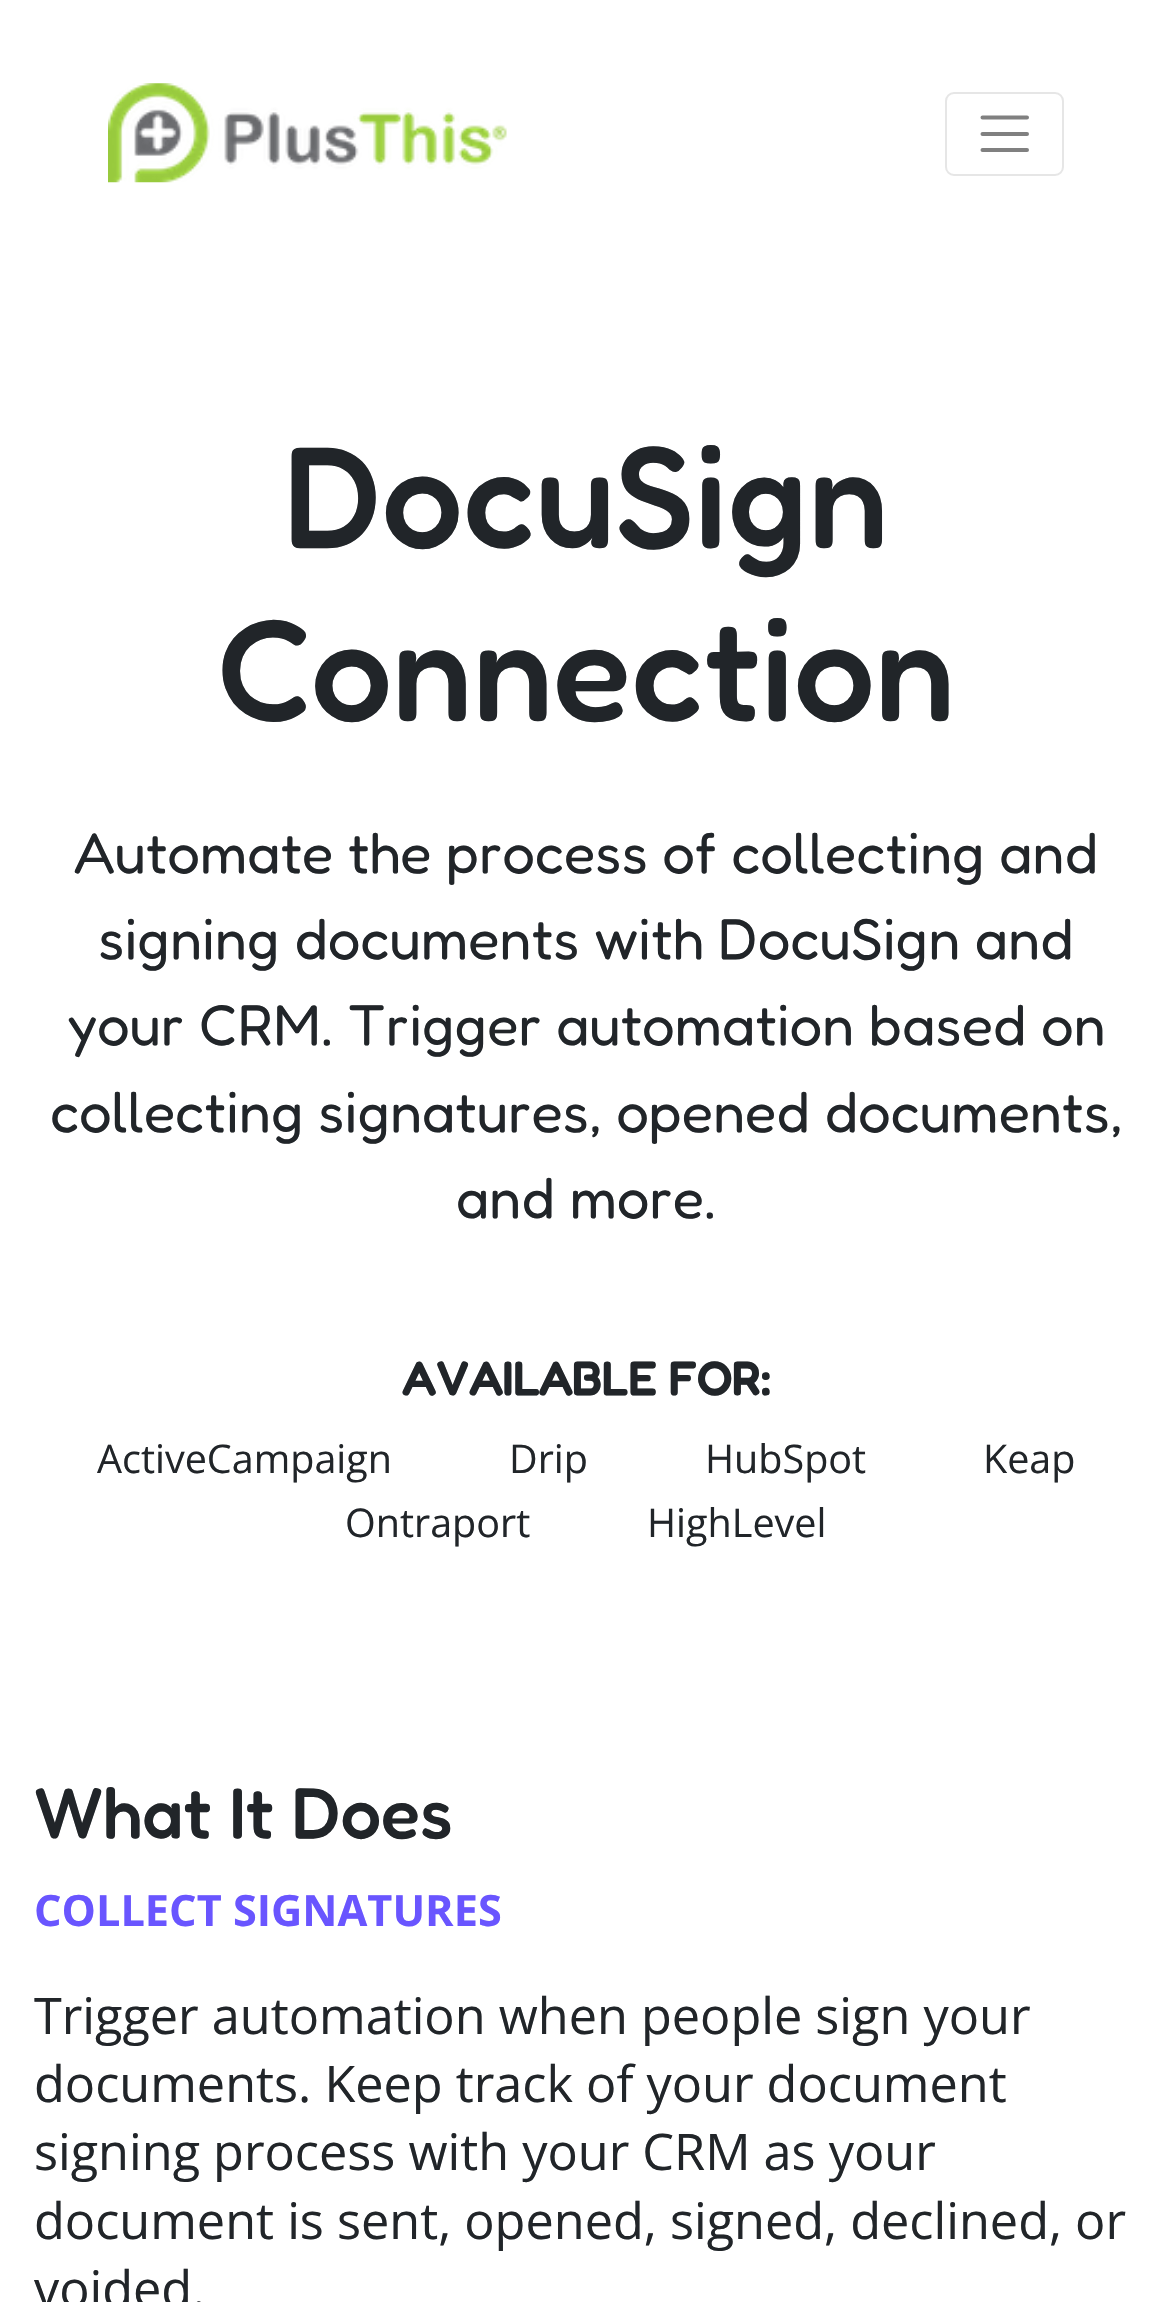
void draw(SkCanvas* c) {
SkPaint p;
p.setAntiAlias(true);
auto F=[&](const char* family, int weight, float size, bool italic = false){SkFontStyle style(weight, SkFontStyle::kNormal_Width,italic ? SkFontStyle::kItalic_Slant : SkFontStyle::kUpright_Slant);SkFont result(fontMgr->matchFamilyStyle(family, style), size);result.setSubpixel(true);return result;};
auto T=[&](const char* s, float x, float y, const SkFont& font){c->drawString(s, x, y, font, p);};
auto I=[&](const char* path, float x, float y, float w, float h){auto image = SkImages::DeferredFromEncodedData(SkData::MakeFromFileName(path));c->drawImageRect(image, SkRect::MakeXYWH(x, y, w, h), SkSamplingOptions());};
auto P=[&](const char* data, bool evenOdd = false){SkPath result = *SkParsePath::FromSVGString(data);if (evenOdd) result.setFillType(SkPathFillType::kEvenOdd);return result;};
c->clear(0xffffffff);
I("1.png",108,83,399,100);
p.setStroke(true);
p.setStrokeWidth(2);
p.setColor(0xffe6e6e6);
c->drawRoundRect(SkRect::MakeXYWH(946,93,117,82),8,8,p);
p.setStrokeWidth(4);
p.setStrokeCap(SkPaint::kRound_Cap);
p.setColor(0xff808080);
c->drawPath(P("M982.5 117.5h44.5m-44.5 16.5h44.5m-44.5 16h44.5"),p);
auto f1 = F("Fredoka",500,144);
p.setStroke(false);
p.setColor(0xff212529);
T("DocuSign",284,547,f1);
T("Connection",217,720,f1);
auto f2 = F("Fredoka",400,57.6);
T("Automate the process of collecting and",74,873,f2);
T("signing documents with DocuSign and",98,959,f2);
T("your CRM. Trigger automation based on",67,1045,f2);
T("collecting signatures, opened documents,",50,1132,f2);
T("and more.",456,1218,f2);
auto f3 = F("Fredoka",700,46.75);
T("AVAILABLE FOR:",402,1395,f3);
auto f4 = F("Open Sans",400,39.5);
T("ActiveCampaign",97,1473,f4);
T("Drip",509,1473,f4);
T("HubSpot",705,1473,f4);
T("Keap",983,1473,f4);
T("Ontraport",345,1537,f4);
T("HighLevel",647,1537,f4);
auto f5 = F("Fredoka",500,72);
T("What It Does",34,1838,f5);
auto f6 = F("Open Sans",700,43.25);
p.setColor(0xff6955ff);
T("COLLECT SIGNATURES",34,1926,f6);
auto f7 = F("Open Sans",400,50.4);
p.setColor(0xff212529);
T("Trigger automation when people sign your",34,2034,f7);
T("documents. Keep track of your document",34,2102,f7);
T("signing process with your CRM as your",34,2170,f7);
T("document is sent, opened, signed, declined, or",34,2239,f7);
T("voided.",34,2307,f7);
}
